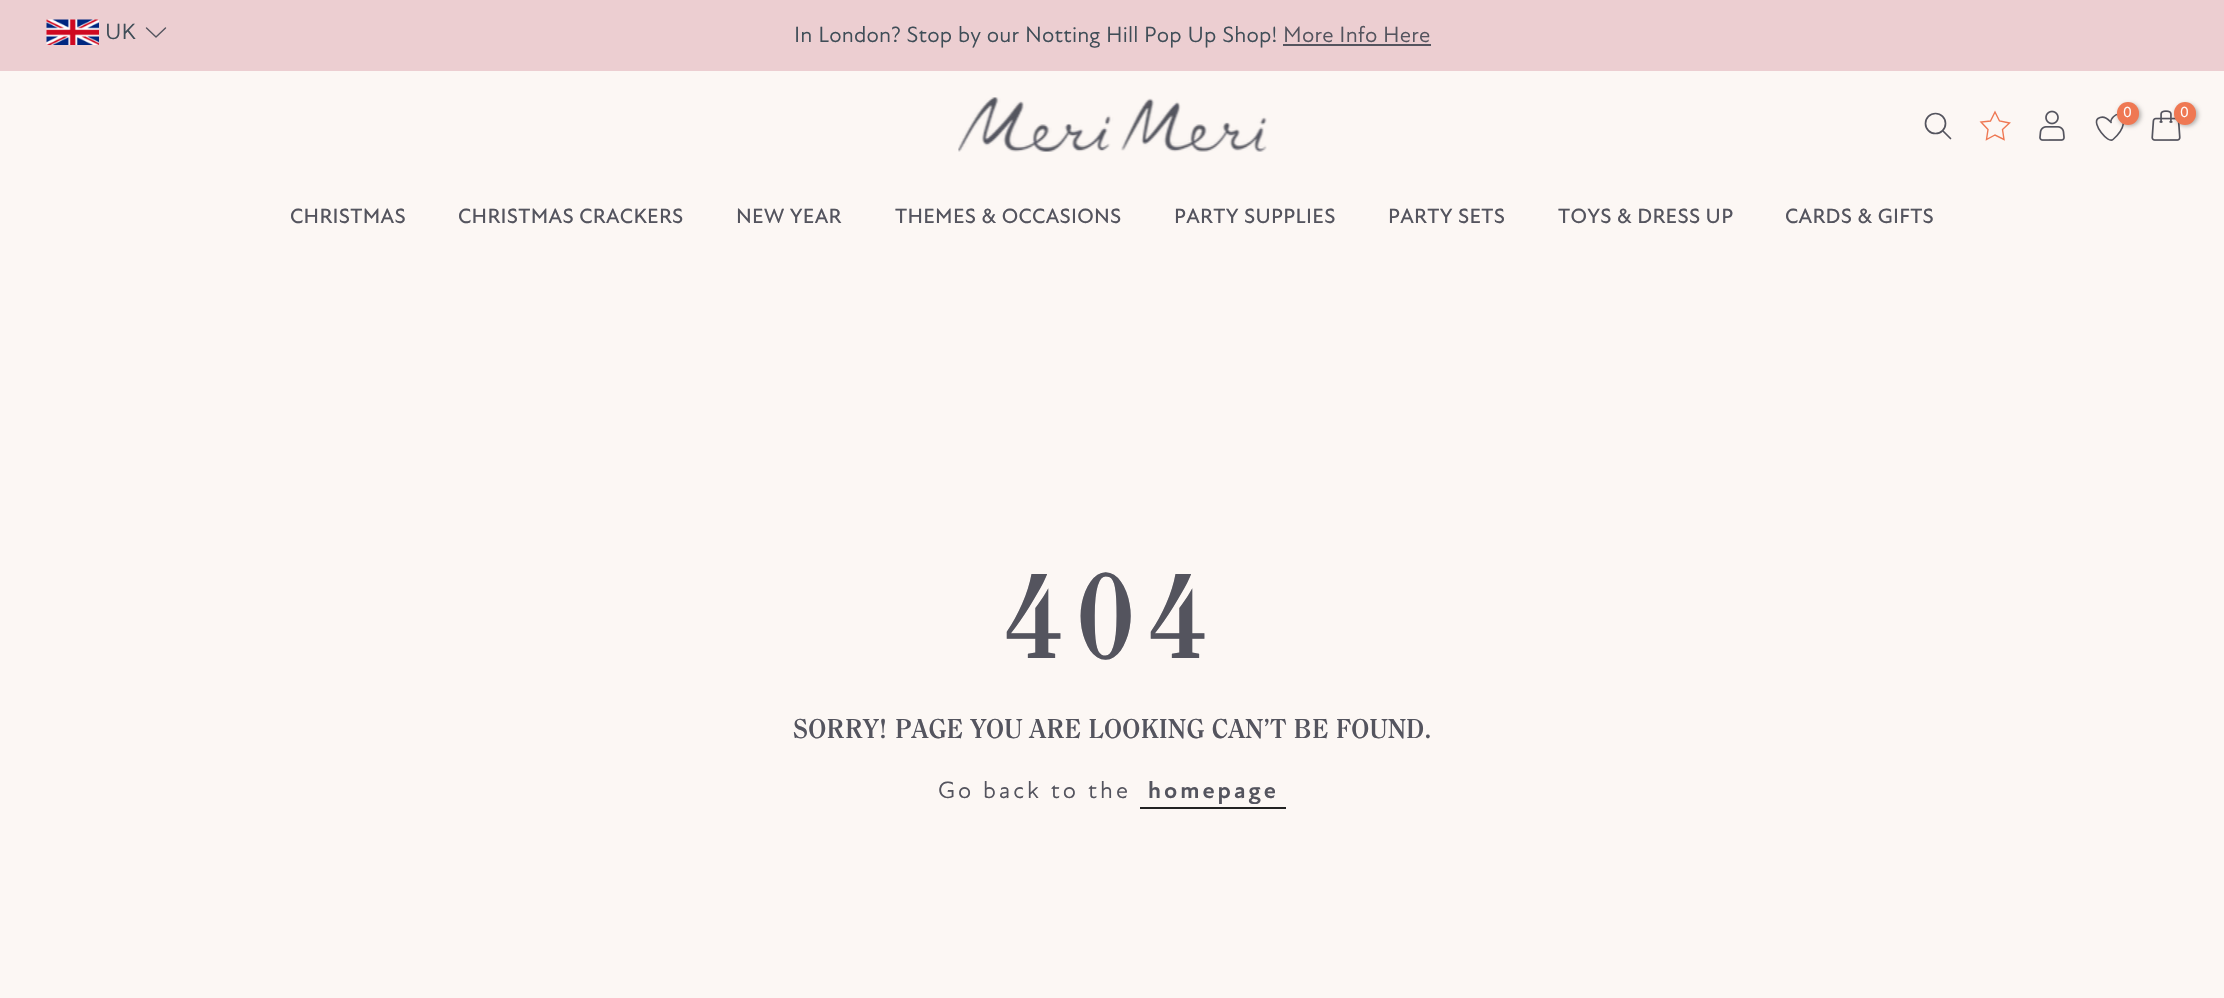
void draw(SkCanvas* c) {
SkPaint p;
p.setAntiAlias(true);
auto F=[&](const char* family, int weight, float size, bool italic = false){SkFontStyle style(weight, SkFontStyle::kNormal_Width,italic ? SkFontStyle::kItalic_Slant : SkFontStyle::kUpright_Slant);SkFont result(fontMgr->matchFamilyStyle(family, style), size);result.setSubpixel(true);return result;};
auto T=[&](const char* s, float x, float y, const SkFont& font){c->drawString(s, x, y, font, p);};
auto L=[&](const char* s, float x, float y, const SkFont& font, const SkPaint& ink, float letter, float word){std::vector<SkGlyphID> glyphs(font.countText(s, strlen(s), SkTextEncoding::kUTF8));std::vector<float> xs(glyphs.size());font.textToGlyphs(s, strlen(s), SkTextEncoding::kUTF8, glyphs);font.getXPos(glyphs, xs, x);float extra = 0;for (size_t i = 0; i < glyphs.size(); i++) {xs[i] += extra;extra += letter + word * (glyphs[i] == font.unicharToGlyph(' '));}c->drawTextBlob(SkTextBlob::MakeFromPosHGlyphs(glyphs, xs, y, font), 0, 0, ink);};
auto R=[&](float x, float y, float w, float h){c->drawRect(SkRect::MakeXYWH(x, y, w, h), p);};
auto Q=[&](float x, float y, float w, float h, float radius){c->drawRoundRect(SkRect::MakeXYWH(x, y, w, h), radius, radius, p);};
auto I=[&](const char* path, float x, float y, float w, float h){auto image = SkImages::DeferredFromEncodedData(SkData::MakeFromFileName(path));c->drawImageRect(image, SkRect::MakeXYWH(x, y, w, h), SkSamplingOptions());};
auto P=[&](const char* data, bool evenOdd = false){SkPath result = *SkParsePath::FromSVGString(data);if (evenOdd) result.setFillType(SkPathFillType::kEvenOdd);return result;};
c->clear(0xfffcf7f4);
p.setColor(0xffecced1);
R(0,0,2224,71);
I("1.png",46,19,53,26);
auto f1 = F("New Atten",400,22.5);
p.setColor(0xff3f4d57);
L("UK",105,39,f1,p,.15,0);
p.setStroke(true);
p.setStrokeWidth(1.4);
p.setStrokeCap(SkPaint::kRound_Cap);
p.setStrokeJoin(SkPaint::kRound_Join);
p.setColor(0xff54545e);
c->drawPath(P("M146.5 28l9.5 9l9.5-9"),p);
p.setStroke(false);
p.setColor(0xff3f4d57);
L("In London? Stop by our Notting Hill Pop Up Shop!",794,42,f1,p,.15,0);
p.setColor(0xff54545e);
L("More Info Here",1283,42,f1,p,.15,0);
R(1283,44,148,2);
I("2.png",958,97,309,55);
p.setStroke(true);
p.setStrokeWidth(1.7);
p.setStrokeCap(SkPaint::kButt_Cap);
p.setStrokeJoin(SkPaint::kMiter_Join);
c->drawCircle(1935.5,123.5,10,p);
p.setStrokeCap(SkPaint::kRound_Cap);
c->drawPath(P("M1950.5 138.5l-7.5-7.5"),p);
p.setStrokeWidth(1.4);
p.setStrokeCap(SkPaint::kButt_Cap);
p.setColor(0xffef7853);
c->drawPath(P("M1990.5 121l4.5-9l4.5 9l10 2l-7 6.5l1.5 10l-9-4.5l-8.5 4.5l1.5-10l-7-7.5z"),p);
I("3.png",2039,110,26,31);
p.setStrokeWidth(1.6);
p.setColor(0xff54545e);
c->drawPath(P("M2120 114.5c5 2 6.5 13.5-7 25c-5 4.5-21.5-16-15-21c8-5.5 14 6.5 13 3.5c-.5-2.5 4-9 9-7.5z"),p);
p.setStroke(false);
p.setColor(0x4d000000);
p.setMaskFilter(SkMaskFilter::MakeBlur(kNormal_SkBlurStyle, 2));
c->drawRoundRect(SkRect::MakeXYWH(2118,104,23,22),11,11,p);
p.setMaskFilter(nullptr);
p.setColor(0xffef7853);
Q(2117,102,22,23,11);
auto f2 = F("New Atten",400,15);
p.setColor(0xffffffff);
T("0",2123,117,f2);
I("4.png",2151,110,30,31);
p.setColor(0x4d000000);
p.setMaskFilter(SkMaskFilter::MakeBlur(kNormal_SkBlurStyle, 2));
c->drawRoundRect(SkRect::MakeXYWH(2175,104,23,22),11,11,p);
p.setMaskFilter(nullptr);
p.setColor(0xffef7853);
Q(2174,102,22,23,11);
p.setColor(0xffffffff);
T("0",2180,117,f2);
auto f3 = F("New Atten",500,21);
p.setColor(0xff54545e);
L("CHRISTMAS",290,223,f3,p,.3,0);
L("CHRISTMAS CRACKERS",458,223,f3,p,.3,0);
L("NEW YEAR",736,223,f3,p,.3,0);
L("THEMES & OCCASIONS",895,223,f3,p,.3,0);
L("PARTY SUPPLIES",1174,223,f3,p,.3,0);
L("PARTY SETS",1388,223,f3,p,.3,0);
L("TOYS & DRESS UP",1558,223,f3,p,.3,0);
L("CARDS & GIFTS",1785,223,f3,p,.3,0);
auto f4 = F("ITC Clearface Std",700,120);
L("404",1004,658,f4,p,12,0);
auto f5 = F("ITC Clearface Std",700,27);
L("SORRY! PAGE YOU ARE LOOKING CAN’T BE FOUND.",793,738,f5,p,.3,0);
auto f6 = F("New Atten",400,24);
L("Go back to the",938,798,f6,p,3,0);
auto f7 = F("New Atten",700,24);
L("homepage",1148,798,f7,p,3,0);
p.setColor(0xff222222);
R(1140,807,146,2);
}
